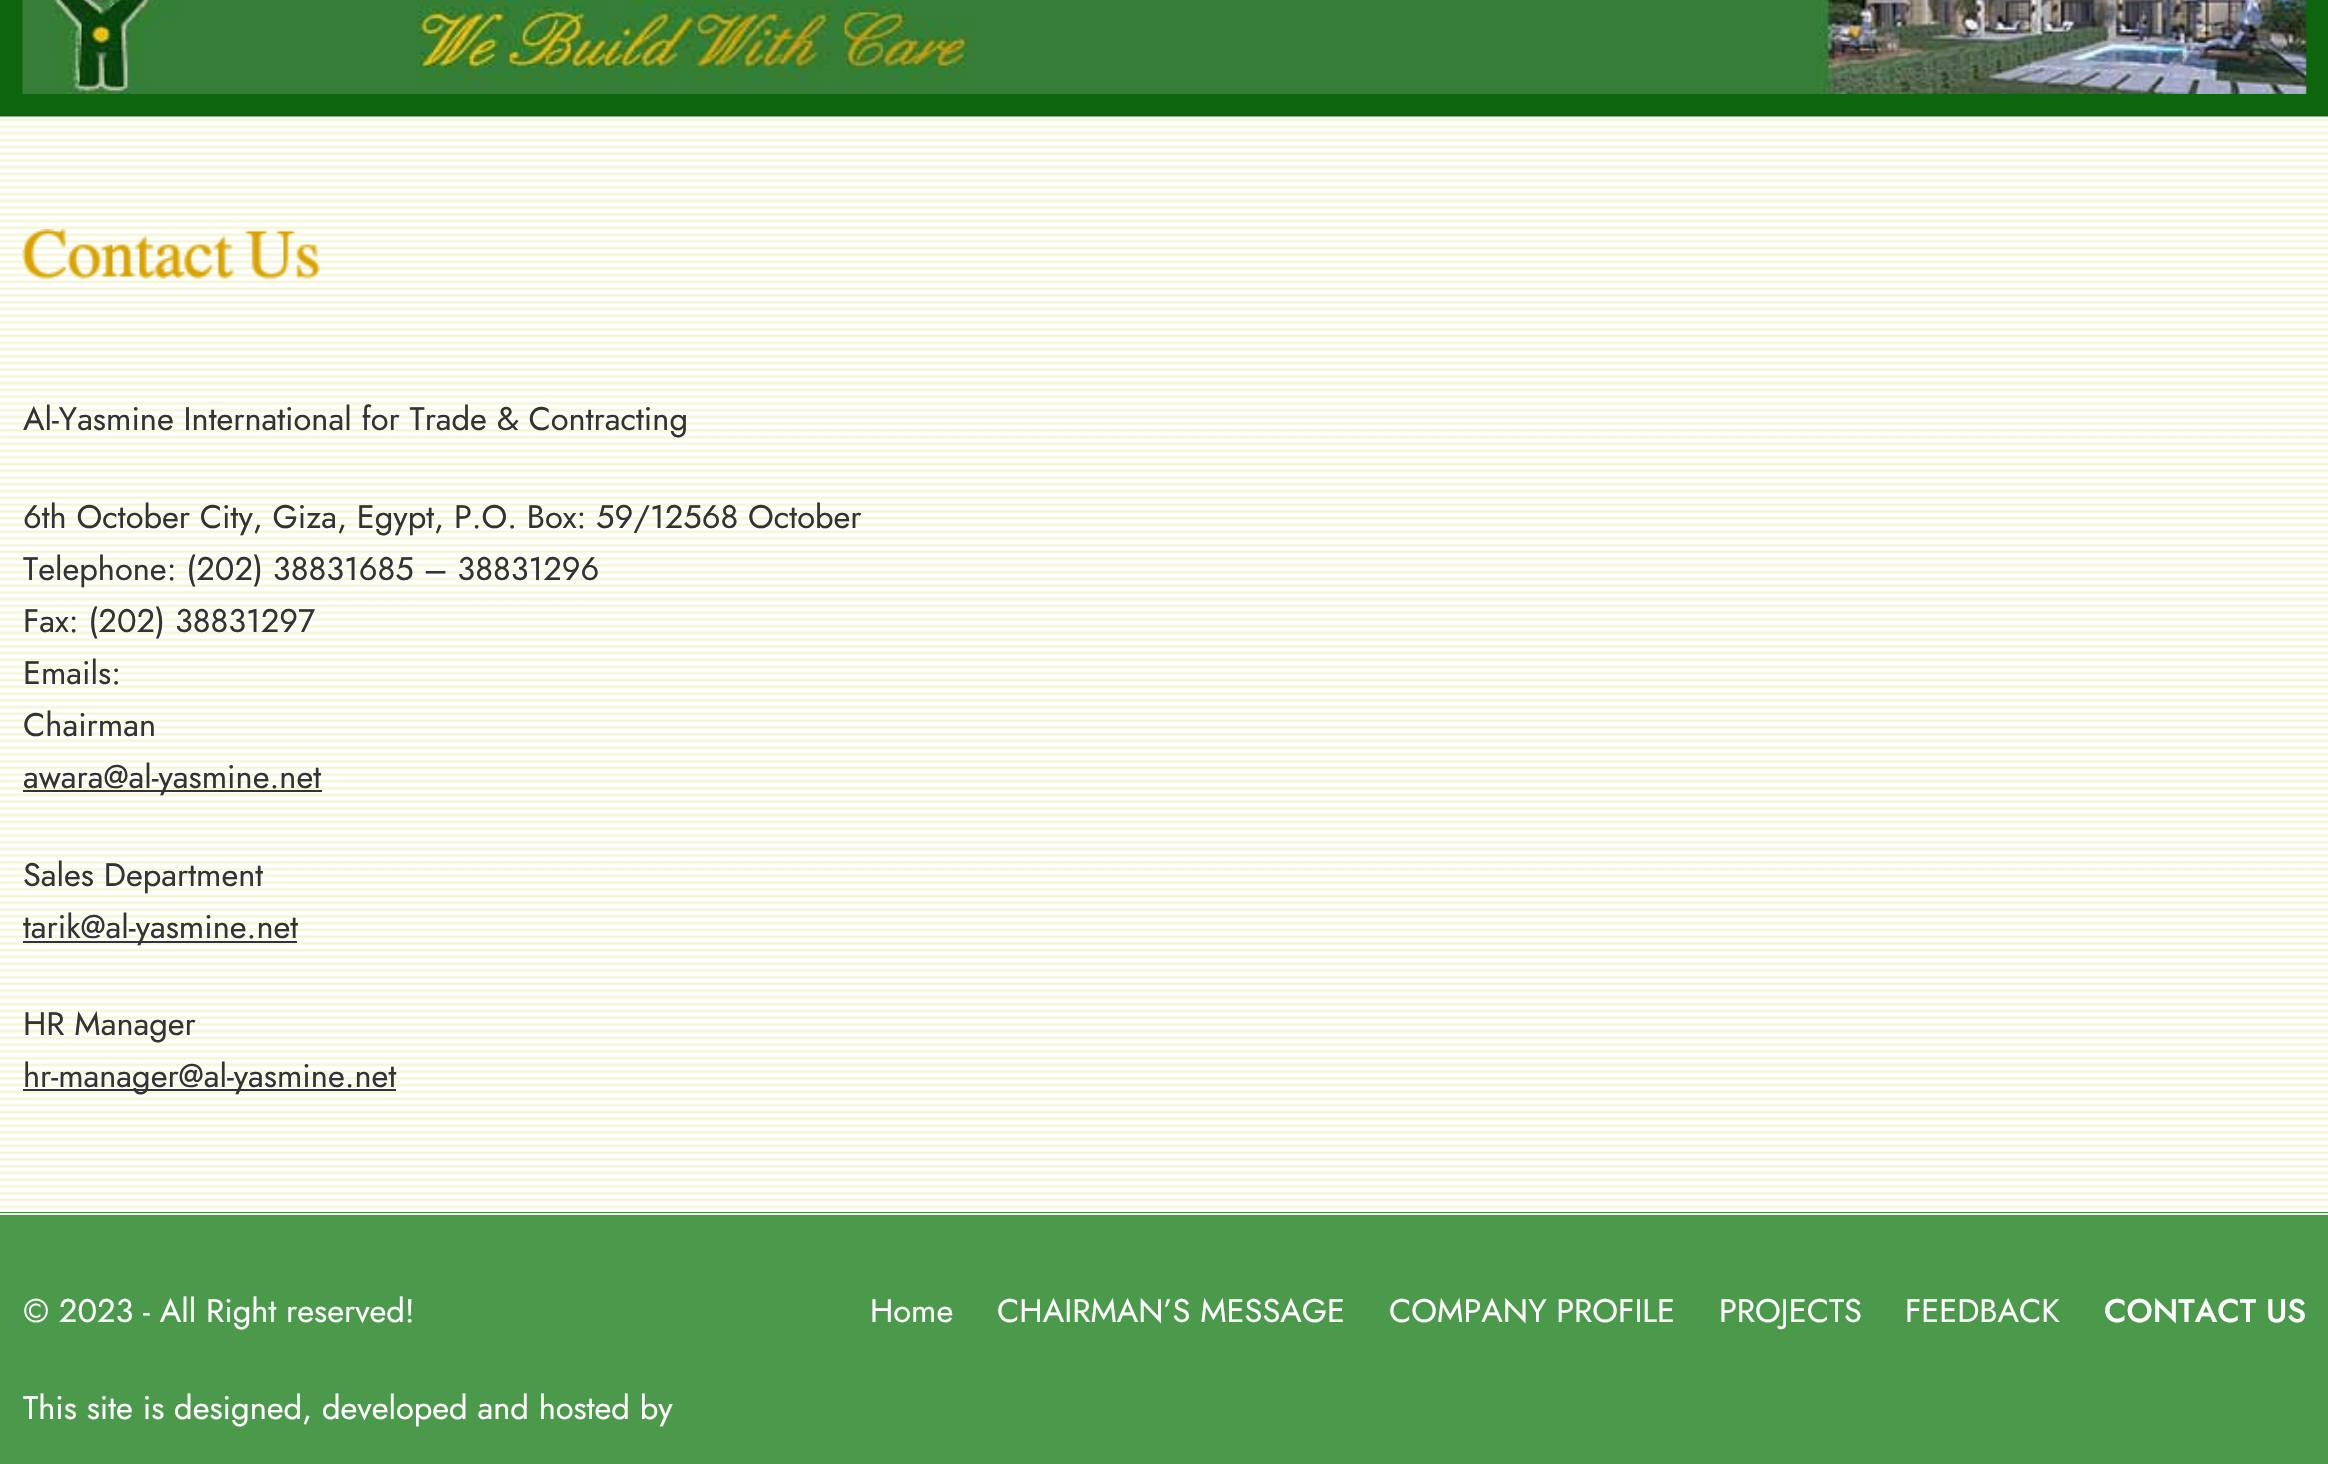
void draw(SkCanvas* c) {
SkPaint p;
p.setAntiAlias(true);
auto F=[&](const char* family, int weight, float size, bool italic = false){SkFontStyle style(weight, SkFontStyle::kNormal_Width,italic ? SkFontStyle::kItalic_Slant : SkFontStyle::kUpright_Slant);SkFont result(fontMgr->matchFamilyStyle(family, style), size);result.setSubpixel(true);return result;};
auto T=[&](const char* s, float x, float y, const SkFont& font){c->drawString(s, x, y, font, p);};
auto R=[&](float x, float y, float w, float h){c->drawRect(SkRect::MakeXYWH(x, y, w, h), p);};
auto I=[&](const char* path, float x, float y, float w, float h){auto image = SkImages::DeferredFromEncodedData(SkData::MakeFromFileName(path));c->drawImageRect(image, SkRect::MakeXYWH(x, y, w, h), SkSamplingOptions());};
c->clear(0xffffffff);
I("1.png",0,0,2328,1213);
I("2.png",22,0,2285,94);
I("3.png",0,116,2328,1097);
I("4.png",22,229,298,50);
auto f1 = F("Jost",400,32.6);
p.setColor(0xff333333);
T("Al-Yasmine International for Trade & Contracting",23,430,f1);
T("6th October City, Giza, Egypt, P.O. Box: 59/12568 October",23,528,f1);
T("Telephone: (202) 38831685 – 38831296",23,580,f1);
T("Fax: (202) 38831297",23,632,f1);
T("Emails:",23,684,f1);
T("Chairman",23,736,f1);
R(23,790,299,2);
T("awara@al-yasmine.net",23,788,f1);
T("Sales Department",23,886,f1);
R(23,941,274,2);
T("tarik@al-yasmine.net",23,938,f1);
T("HR Manager",23,1035,f1);
R(23,1089,373,2);
T("hr-manager@al-yasmine.net",23,1087,f1);
p.setColor(0xff4b994b);
R(0,1215,2328,249);
p.setColor(0xffececec);
R(0,1213,2328,2);
p.setColor(0xffffffff);
T("© 2023 - All Right reserved!",23,1322,f1);
T("This site is designed, developed and hosted by",23,1419,f1);
T("Home",870,1322,f1);
T("CHAIRMAN’S MESSAGE",997,1322,f1);
T("COMPANY PROFILE",1389,1322,f1);
T("PROJECTS",1719,1322,f1);
T("FEEDBACK",1905,1322,f1);
auto f2 = F("Jost",500,32.6);
T("CONTACT US",2104,1322,f2);
}
